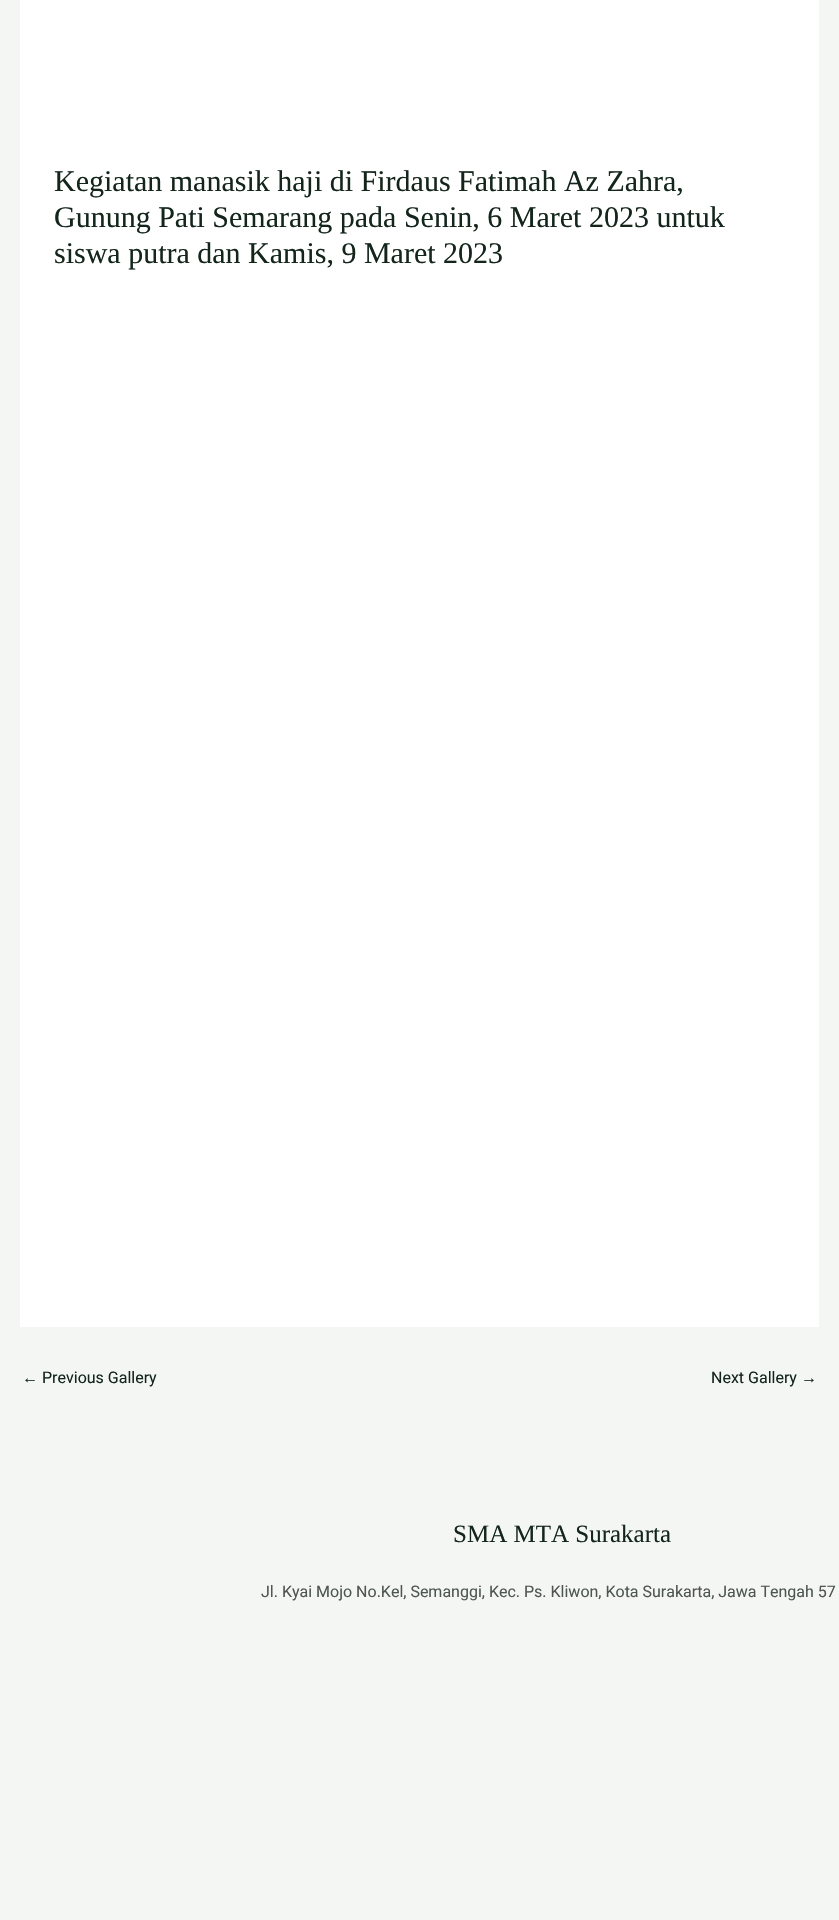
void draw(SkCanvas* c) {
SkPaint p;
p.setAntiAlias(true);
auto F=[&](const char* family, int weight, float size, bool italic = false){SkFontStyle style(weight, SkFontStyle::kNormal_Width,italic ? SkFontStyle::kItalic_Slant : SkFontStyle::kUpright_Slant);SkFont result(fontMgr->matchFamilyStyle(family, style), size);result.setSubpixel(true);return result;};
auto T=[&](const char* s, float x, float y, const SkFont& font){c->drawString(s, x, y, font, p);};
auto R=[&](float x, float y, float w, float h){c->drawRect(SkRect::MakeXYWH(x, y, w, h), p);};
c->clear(0xfff4f6f4);
p.setColor(0xffffffff);
R(20,0,799,1327);
auto f1 = F("Liberation Serif",400,30);
p.setColor(0xff14261c);
T("Kegiatan manasik haji di Firdaus Fatimah Az Zahra,",54,191,f1);
T("Gunung Pati Semarang pada Senin, 6 Maret 2023 untuk",54,227,f1);
T("siswa putra dan Kamis, 9 Maret 2023",54,263,f1);
auto f2 = F("Liberation Sans",400,16);
T("←",22,1383,f2);
auto f3 = F("Roboto",400,16);
T("Previous Gallery",42,1383,f3);
T("Next Gallery",711,1383,f3);
T("→",801,1383,f2);
auto f4 = F("Liberation Serif",400,25);
T("SMA MTA Surakarta",453,1542,f4);
p.setColor(0xff4e5652);
T("Jl. Kyai Mojo No.Kel, Semanggi, Kec. Ps. Kliwon, Kota Surakarta, Jawa Tengah 57",261,1597,f3);
}
